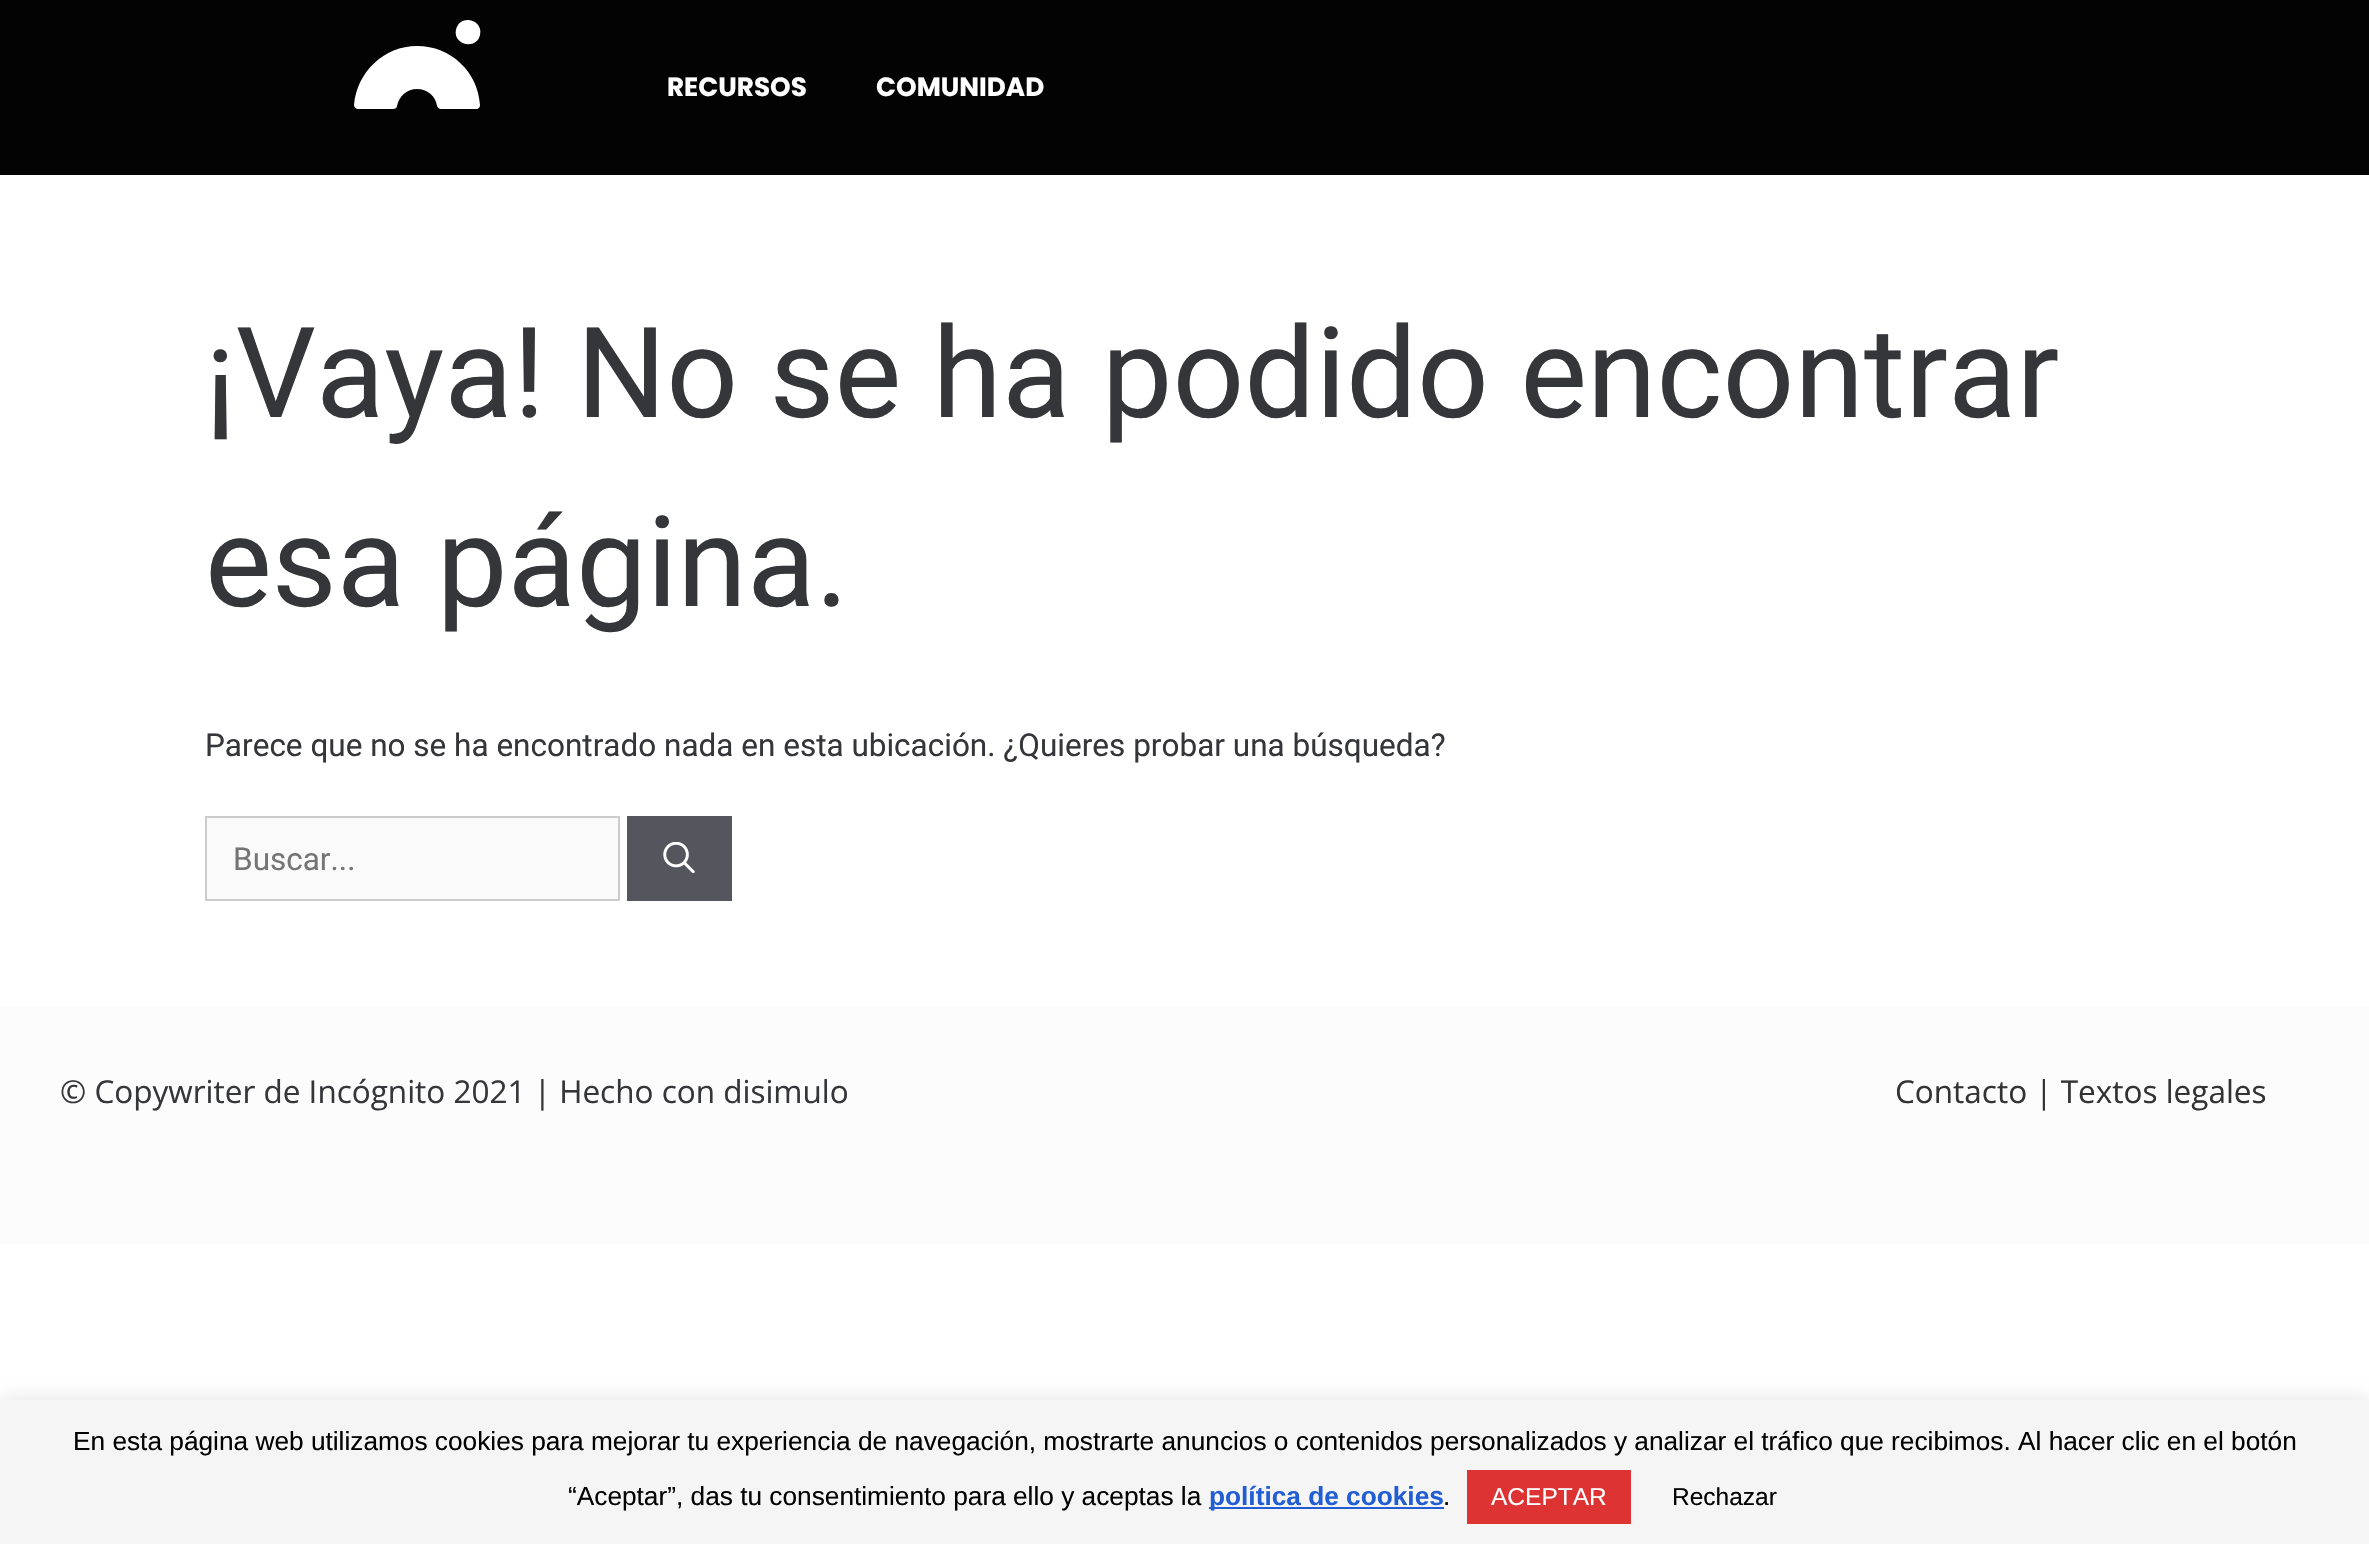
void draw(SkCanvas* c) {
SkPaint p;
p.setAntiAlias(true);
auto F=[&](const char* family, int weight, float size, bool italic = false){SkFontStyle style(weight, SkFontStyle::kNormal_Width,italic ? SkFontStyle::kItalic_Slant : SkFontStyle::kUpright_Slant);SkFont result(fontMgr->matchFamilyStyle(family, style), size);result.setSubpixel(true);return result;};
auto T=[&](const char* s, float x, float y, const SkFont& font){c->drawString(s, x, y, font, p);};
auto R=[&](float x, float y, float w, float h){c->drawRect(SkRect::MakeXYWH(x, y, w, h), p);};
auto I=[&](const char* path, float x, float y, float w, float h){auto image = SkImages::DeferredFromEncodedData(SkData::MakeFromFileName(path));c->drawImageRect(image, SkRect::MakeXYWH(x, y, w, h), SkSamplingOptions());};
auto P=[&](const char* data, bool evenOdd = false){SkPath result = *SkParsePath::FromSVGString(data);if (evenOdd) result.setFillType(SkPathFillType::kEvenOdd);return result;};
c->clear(0xffffffff);
p.setColor(0xff030303);
R(0,0,2369,175);
p.setColor(0xffffffff);
c->drawPath(P("M456 29.5c4-16 27.5-10 24 5.5c-3.5 15.5-27.5 10-24-5.5z"),p);
c->drawPath(P("M393 109c2 0 4-1 4-3c2-10 10-17 20-17c10 0 19 7 20 17c1 2 2 3 4 3h35c3 0 4-2 4-4c-2-33-29-59-63-59c-33 0-60 26-63 59c0 2 2 4 4 4z"),p);
auto f1 = F("Poppins",700,26.25);
T("RECURSOS",667,96,f1);
T("COMUNIDAD",876,96,f1);
auto f2 = F("Roboto",400,126);
p.setColor(0xff35363a);
T("¡Vaya! No se ha podido encontrar",205,417,f2);
T("esa página.",205,606,f2);
auto f3 = F("Roboto",400,31.5);
T("Parece que no se ha encontrado nada en esta ubicación. ¿Quieres probar una búsqueda?",205,756,f3);
p.setColor(0xfffafafa);
c->drawRect(SkRect::MakeXYWH(206,817,413,83),p);
p.setStroke(true);
p.setStrokeWidth(2);
p.setColor(0xffcccccc);
c->drawRect(SkRect::MakeXYWH(206,817,413,83),p);
p.setStroke(false);
p.setColor(0xff757575);
T("Buscar...",233,870,f3);
p.setColor(0xff55555e);
R(627,816,105,85);
I("1.png",663,842,32,31);
p.setColor(0xfffcfcfc);
R(0,1006,2369,238);
auto f4 = F("Open Sans",400,31.5);
p.setColor(0xff35363a);
T("© Copywriter de Incógnito 2021 | Hecho con disimulo",60,1103,f4);
p.setColor(0xff333333);
T("Contacto | Textos legales",1895,1103,f4);
p.setColor(0x4dacabab);
p.setMaskFilter(SkMaskFilter::MakeBlur(kNormal_SkBlurStyle, 9));
c->drawRect(SkRect::MakeXYWH(0,1398,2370,146),p);
p.setMaskFilter(nullptr);
p.setColor(0xfff5f5f5);
R(0,1400,2369,144);
auto f5 = F("Liberation Sans",400,26.25);
p.setColor(0xff030303);
T("En esta página web utilizamos cookies para mejorar tu experiencia de navegación, mostrarte anuncios o contenidos personalizados y analizar el tráfico que recibimos. Al hacer clic en el botón",73,1450,f5);
T("“Aceptar”, das tu consentimiento para ello y aceptas la",568,1505,f5);
p.setColor(0xff215dd3);
R(1209,1507,235,2);
auto f6 = F("Liberation Sans",700,26.25);
T("política de cookies",1209,1505,f6);
p.setColor(0xff030303);
T(".",1443,1505,f5);
p.setColor(0xffdd3333);
R(1467,1470,164,54);
auto f7 = F("Liberation Sans",400,24.5);
p.setColor(0xffffffff);
T("ACEPTAR",1491,1505,f7);
p.setColor(0xff030303);
T("Rechazar",1672,1505,f7);
}
